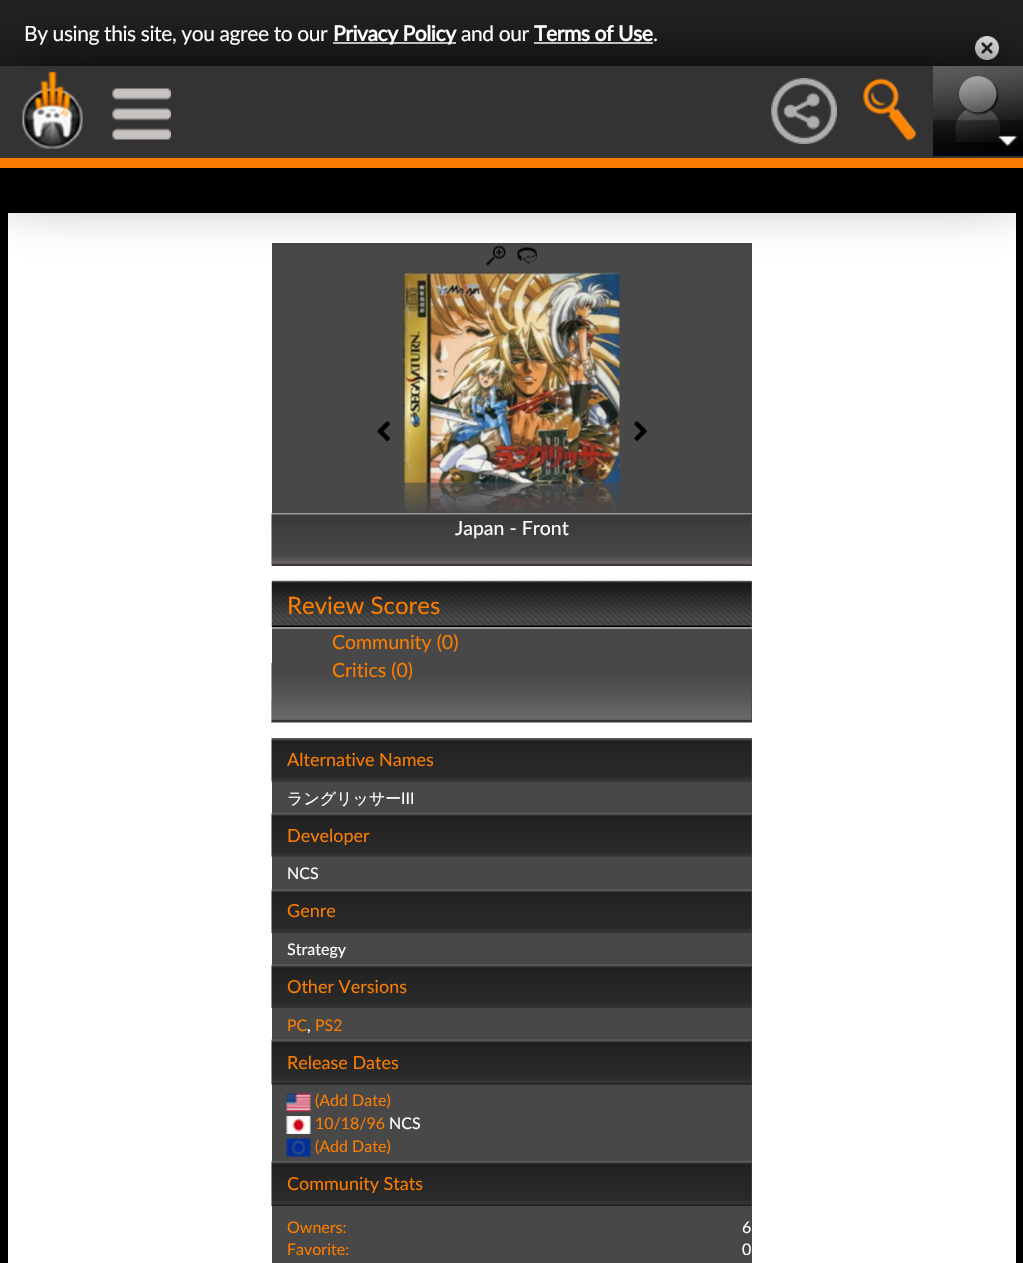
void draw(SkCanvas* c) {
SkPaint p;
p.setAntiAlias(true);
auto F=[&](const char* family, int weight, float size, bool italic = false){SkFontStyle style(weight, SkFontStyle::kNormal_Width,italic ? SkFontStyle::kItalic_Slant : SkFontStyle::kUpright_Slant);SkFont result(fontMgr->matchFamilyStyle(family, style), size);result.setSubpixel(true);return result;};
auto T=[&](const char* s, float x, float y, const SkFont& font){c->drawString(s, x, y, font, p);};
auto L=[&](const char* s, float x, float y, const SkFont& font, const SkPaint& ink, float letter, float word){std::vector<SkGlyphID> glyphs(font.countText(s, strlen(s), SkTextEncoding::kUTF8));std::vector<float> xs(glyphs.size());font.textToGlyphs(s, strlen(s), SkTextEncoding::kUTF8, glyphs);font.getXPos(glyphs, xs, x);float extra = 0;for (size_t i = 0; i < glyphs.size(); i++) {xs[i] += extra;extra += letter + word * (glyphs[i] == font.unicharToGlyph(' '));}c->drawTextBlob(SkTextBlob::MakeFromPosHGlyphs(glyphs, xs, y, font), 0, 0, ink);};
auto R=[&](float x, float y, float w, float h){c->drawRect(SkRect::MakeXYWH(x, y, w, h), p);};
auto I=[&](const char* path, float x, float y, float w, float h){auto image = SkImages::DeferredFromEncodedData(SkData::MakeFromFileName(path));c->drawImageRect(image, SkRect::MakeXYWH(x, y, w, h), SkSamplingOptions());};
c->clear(0xff000000);
p.setColor(0xff222222);
R(0,0,1023,66);
p.setColor(0xffffffff);
R(333,42,123,2);
R(534,42,119,2);
I("7.png",975,36,24,24);
R(8,213,1008,1050);
p.setColor(0xff484848);
R(272,243,480,323);
I("11.png",486,245,20,21);
I("12.png",517,247,20,18);
I("13.png",403,272,217,211);
p.setColor(0xff000000);
p.setMaskFilter(SkMaskFilter::MakeBlur(kNormal_SkBlurStyle, 37.5));
c->drawRect(SkRect::MakeXYWH(0,68,1023,102),p);
p.setMaskFilter(nullptr);
p.setColor(0xff333333);
R(0,66,1023,92);
I("1.png",22,71,61,78);
I("2.png",112,88,59,52);
I("3.png",771,78,66,66);
I("4.png",863,78,57,72);
I("5.png",933,66,90,90);
I("6.png",933,120,90,28);
p.setColor(0xfff97b00);
R(0,158,1023,10);
auto f1 = F("Lato",400,21);
p.setColor(0xffffffff);
L("By using this site, you agree to our",24,41,f1,p,-.4,0);
auto f2 = F("Lato",700,21);
L("Privacy Policy",333,41,f2,p,-.4,0);
L("and our",461,41,f1,p,-.4,0);
L("Terms of Use",534,41,f2,p,-.4,0);
L(".",653,41,f1,p,-.4,0);
I("8.png",271,513,481,53);
I("9.png",377,421,14,20);
I("10.png",634,421,13,20);
I("14.png",403,483,217,30);
auto f3 = F("Lato",400,19.5);
T("Japan - Front",455,535,f3);
p.setColor(0xff484848);
R(272,581,480,118);
I("15.png",271,663,481,60);
I("16.png",271,580,481,47);
p.setColor(0xff999999);
R(272,627,480,2);
auto f4 = F("Lato",400,24);
p.setColor(0xfffa7d01);
T("Review Scores",287,614,f4);
T("Community (0)",332,649,f3);
T("Critics (0)",332,677,f3);
p.setColor(0xff484848);
R(272,699,480,23);
I("17.png",271,699,481,23);
p.setColor(0xff999999);
R(272,722,480,1);
p.setColor(0xff484848);
R(272,738,480,525);
I("18.png",271,738,481,44);
auto f5 = F("Lato",400,18);
p.setColor(0xfffa7d01);
T("Alternative Names",287,766,f5);
auto f6 = F("WenQuanYi Zen Hei",500,16);
p.setColor(0xffffffff);
T("ラングリッサー",287,804,f6);
auto f7 = F("Lato",400,16);
T("III",401,804,f7);
I("18.png",271,813,481,44);
p.setColor(0xfffa7d01);
T("Developer",287,842,f5);
p.setColor(0xffffffff);
T("NCS",287,879,f7);
I("19.png",271,889,481,44);
p.setColor(0xfffa7d01);
T("Genre",287,917,f5);
p.setColor(0xffffffff);
T("Strategy",287,955,f7);
I("19.png",271,964,481,44);
p.setColor(0xfffa7d01);
T("Other Versions",287,993,f5);
T("PC",287,1031,f7);
p.setColor(0xffffffff);
T(",",307,1031,f7);
p.setColor(0xfffa7d01);
T("PS2",315,1031,f7);
I("20.png",271,1039,481,46);
T("Release Dates",287,1069,f5);
I("21.png",286,1093,25,19);
T("(Add Date)",315,1106,f7);
I("22.png",286,1116,25,18);
T("10/18/96",315,1129,f7);
p.setColor(0xffffffff);
T("NCS",389,1129,f7);
I("23.png",286,1138,25,19);
p.setColor(0xfffa7d01);
T("(Add Date)",315,1152,f7);
I("24.png",271,1161,481,45);
T("Community Stats",287,1190,f5);
T("Owners:",287,1233,f7);
p.setColor(0xffffffff);
T("6",742,1233,f7);
p.setColor(0xfffa7d01);
T("Favorite:",287,1255,f7);
p.setColor(0xffffffff);
T("0",742,1255,f7);
}
